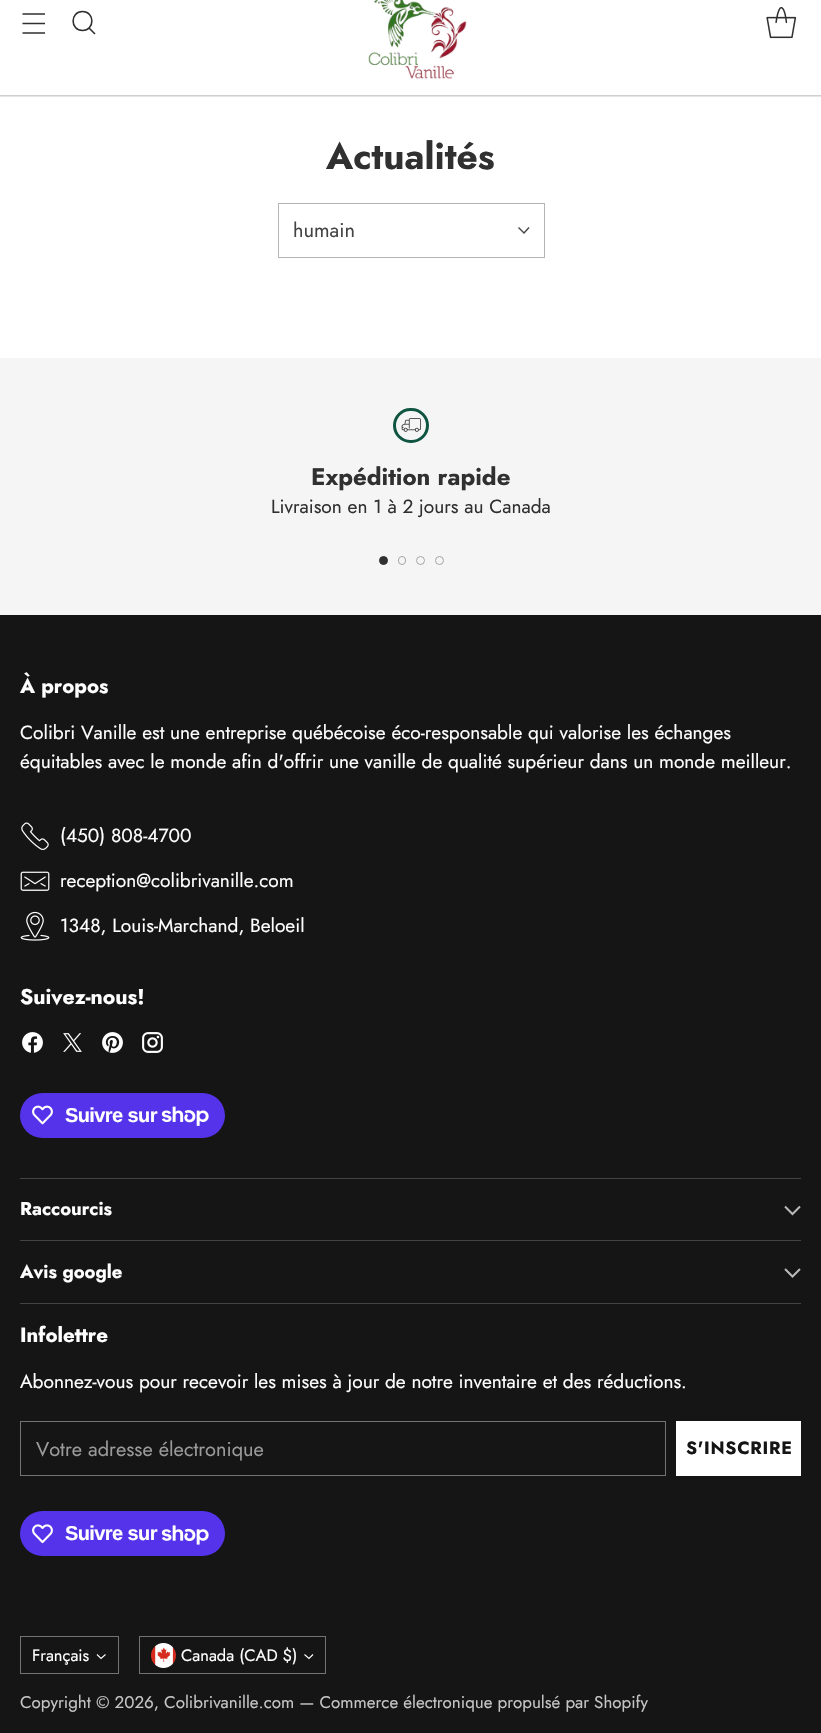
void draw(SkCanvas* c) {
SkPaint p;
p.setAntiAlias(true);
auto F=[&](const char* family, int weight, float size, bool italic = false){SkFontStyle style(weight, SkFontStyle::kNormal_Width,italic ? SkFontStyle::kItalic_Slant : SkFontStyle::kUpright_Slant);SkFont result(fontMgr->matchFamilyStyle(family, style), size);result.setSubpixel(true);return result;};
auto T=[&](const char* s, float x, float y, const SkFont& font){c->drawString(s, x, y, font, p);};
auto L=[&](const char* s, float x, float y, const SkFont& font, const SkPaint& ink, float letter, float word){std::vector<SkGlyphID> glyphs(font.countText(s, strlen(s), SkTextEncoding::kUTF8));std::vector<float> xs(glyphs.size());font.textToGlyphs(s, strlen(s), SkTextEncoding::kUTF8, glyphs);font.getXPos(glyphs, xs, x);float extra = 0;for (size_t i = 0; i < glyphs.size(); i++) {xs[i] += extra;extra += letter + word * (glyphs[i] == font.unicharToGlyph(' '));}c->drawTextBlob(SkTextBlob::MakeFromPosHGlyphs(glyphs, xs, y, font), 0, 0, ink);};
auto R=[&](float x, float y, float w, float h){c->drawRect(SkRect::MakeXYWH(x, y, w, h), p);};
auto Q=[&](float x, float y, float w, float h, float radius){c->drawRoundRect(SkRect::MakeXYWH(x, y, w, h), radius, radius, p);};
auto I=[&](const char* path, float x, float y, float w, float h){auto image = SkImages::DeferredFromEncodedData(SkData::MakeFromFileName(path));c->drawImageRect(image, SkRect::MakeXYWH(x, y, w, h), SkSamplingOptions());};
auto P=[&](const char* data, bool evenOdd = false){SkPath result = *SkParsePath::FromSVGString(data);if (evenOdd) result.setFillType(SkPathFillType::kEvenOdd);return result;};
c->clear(0xffffffff);
p.setStroke(true);
p.setStrokeWidth(1);
p.setColor(0xffcfcfcf);
c->drawRect(SkRect::MakeXYWH(-.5,-.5,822,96),p);
p.setStrokeWidth(1.6);
p.setColor(0xff303030);
c->drawPath(P("M22.5 23.5h22.5m-22.5-9.5h22.5m-22.5 19h22.5"),p);
p.setStrokeCap(SkPaint::kRound_Cap);
c->drawPath(P("M82.5 30.5c12.5 0 12.5-19 0-19c-12.5 0-12.5 19 0 19z"),p);
p.setStrokeCap(SkPaint::kButt_Cap);
c->drawPath(P("M89 28l6 6"),p);
I("1.png",368,0,99,79);
I("2.png",766,6,31,33);
p.setStroke(false);
p.setColor(0xffe6e6e6);
R(0,96,821,1);
auto f1 = F("Jost",700,37);
p.setColor(0xff303030);
T("Actualités",326,169,f1);
p.setStroke(true);
p.setStrokeWidth(1);
p.setColor(0xffb4b4b4);
c->drawRect(SkRect::MakeXYWH(278.5,203.5,266,54),p);
auto f2 = F("Jost",400,20);
p.setStroke(false);
p.setColor(0xff444444);
T("humain",293,237,f2);
p.setStroke(true);
p.setStrokeWidth(1.4);
c->drawPath(P("M518.5 227.5l5.5 5.5l5-5.5"),p);
p.setStroke(false);
p.setColor(0xfff5f5f5);
R(0,358,821,257);
p.setStroke(true);
p.setStrokeWidth(3);
p.setColor(0xff105541);
c->drawRoundRect(SkRect::MakeXYWH(394.5,409.5,33,32),16,16,p);
I("3.png",401,418,20,14);
auto f3 = F("Jost",700,24);
p.setStroke(false);
p.setColor(0xff303030);
T("Expédition rapide",311,485,f3);
auto f4 = F("Jost",400,19.1);
T("Livraison en 1 à 2 jours au Canada",271,513,f4);
c->drawCircle(383.5,560.5,4,p);
p.setStroke(true);
p.setStrokeWidth(1);
c->drawCircle(383.5,560.5,4,p);
p.setColor(0xffa6a6a6);
c->drawRoundRect(SkRect::MakeXYWH(398.5,556.5,7,8),3.5,3.5,p);
c->drawCircle(420.5,560.5,4,p);
c->drawCircle(439.5,560.5,4,p);
p.setStroke(false);
p.setColor(0xff151515);
R(0,615,821,1118);
auto f5 = F("Jost",700,20.5);
p.setColor(0xffffffff);
T("À propos",20,693,f5);
T("Colibri Vanille est une entreprise québécoise éco-responsable qui valorise les échanges",20,739,f4);
T("équitables avec le monde afin d'offrir une vanille de qualité supérieur dans un monde meilleur.",20,768,f4);
I("4.png",21,822,28,28);
T("(450) 808-4700",60,842,f4);
I("5.png",20,871,30,20);
T("reception@colibrivanille.com",60,887,f4);
I("6.png",20,911,30,30);
T("1348, Louis-Marchand, Beloeil",60,932,f4);
auto f6 = F("Jost",700,21.25);
T("Suivez-nous!",20,1004,f6);
I("7.png",22,1032,21,21);
I("8.png",63,1033,19,19);
I("9.png",102,1032,21,21);
I("10.png",142,1032,21,21);
p.setColor(0xff5433eb);
Q(20,1093,205,45,22.5);
I("11.png",32,1105,21,20);
auto f7 = F("Liberation Sans",700,20);
p.setColor(0xffffffff);
L("Suivre sur",65,1122,f7,p,-.6,0);
I("12.png",161,1106,48,20);
p.setColor(0xff444444);
R(20,1178,781,1);
R(20,1240,781,1);
auto f8 = F("Jost",700,18.5);
p.setColor(0xffffffff);
T("Raccourcis",20,1215,f8);
p.setStroke(true);
p.setStrokeWidth(2);
p.setColor(0xffb9b9b9);
c->drawPath(P("M785 1206.5l7.5 7.5l7.5-7.5"),p);
p.setStroke(false);
p.setColor(0xff444444);
R(20,1303,781,1);
p.setColor(0xffffffff);
T("Avis google",20,1278,f8);
p.setStroke(true);
p.setColor(0xffb9b9b9);
c->drawPath(P("M785 1269l7.5 7.5l7.5-7.5"),p);
p.setStroke(false);
p.setColor(0xffffffff);
T("Infolettre",20,1342,f5);
T("Abonnez-vous pour recevoir les mises à jour de notre inventaire et des réductions.",20,1388,f4);
p.setStroke(true);
p.setStrokeWidth(1);
p.setColor(0xff737373);
c->drawRect(SkRect::MakeXYWH(20.5,1421.5,645,54),p);
p.setStroke(false);
p.setColor(0xff9a9a9a);
T("Votre adresse électronique",36,1456,f2);
p.setColor(0xffffffff);
R(676,1421,125,55);
auto f9 = F("Jost",700,17.75);
p.setColor(0xff151515);
L("S'INSCRIRE",686,1454,f9,p,.75,0);
p.setColor(0xff5433eb);
Q(20,1511,205,45,22.5);
I("13.png",32,1524,21,20);
p.setColor(0xffffffff);
L("Suivre sur",65,1540,f7,p,-.6,0);
I("14.png",161,1525,48,20);
p.setStroke(true);
p.setColor(0xff737373);
c->drawRect(SkRect::MakeXYWH(20.5,1636.5,98,37),p);
auto f10 = F("Jost",400,16.5);
p.setStroke(false);
p.setColor(0xffffffff);
T("Français",32,1661,f10);
p.setStroke(true);
p.setStrokeWidth(1.1);
c->drawPath(P("M97 1654.5l4 4l4.5-4"),p);
p.setStrokeWidth(1);
p.setColor(0xff737373);
c->drawRect(SkRect::MakeXYWH(139.5,1636.5,186,37),p);
I("15.png",151,1643,25,25);
p.setStroke(false);
p.setColor(0xffffffff);
T("Canada (CAD $)",181,1661,f10);
p.setStroke(true);
p.setStrokeWidth(1.1);
c->drawPath(P("M304.5 1654.5l4.5 4l4-4"),p);
auto f11 = F("Jost",400,16.95);
p.setStroke(false);
p.setColor(0xffc5c5c5);
T("Copyright © 2026, Colibrivanille.com — Commerce électronique propulsé par Shopify",20,1708,f11);
}
